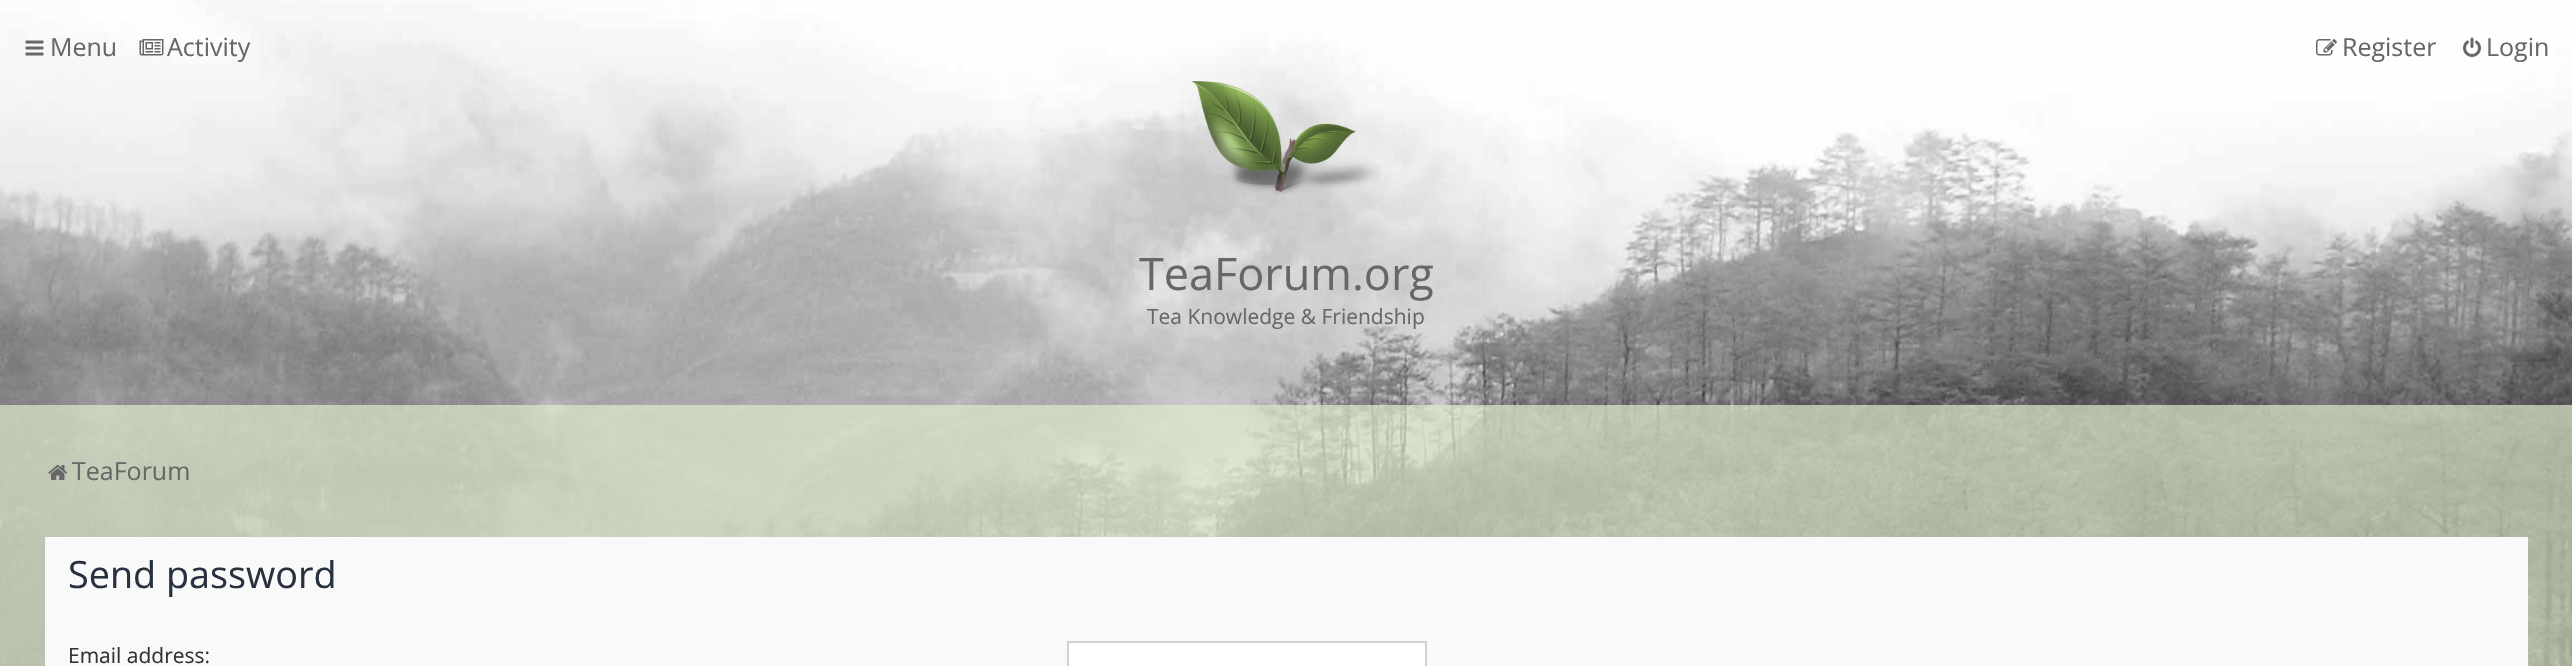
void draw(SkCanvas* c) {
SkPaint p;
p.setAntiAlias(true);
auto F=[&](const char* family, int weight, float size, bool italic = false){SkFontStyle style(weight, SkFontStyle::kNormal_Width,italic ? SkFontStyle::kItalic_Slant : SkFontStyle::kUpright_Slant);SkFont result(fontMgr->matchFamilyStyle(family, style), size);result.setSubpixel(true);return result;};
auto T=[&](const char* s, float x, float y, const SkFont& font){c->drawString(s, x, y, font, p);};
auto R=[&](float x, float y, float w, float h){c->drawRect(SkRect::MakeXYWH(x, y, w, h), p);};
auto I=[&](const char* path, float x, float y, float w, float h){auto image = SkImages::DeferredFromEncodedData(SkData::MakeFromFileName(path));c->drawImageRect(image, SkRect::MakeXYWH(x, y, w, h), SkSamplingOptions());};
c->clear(0xffffffff);
I("1.png",0,0,2572,666);
I("2.png",25,40,19,16);
auto f1 = F("Open Sans",400,25);
p.setColor(0xff676767);
T("Menu",50,56,f1);
I("3.png",139,39,25,17);
T("Activity",167,56,f1);
I("4.png",2316,39,21,17);
T("Register",2342,56,f1);
I("5.png",2463,37,18,20);
T("Login",2486,56,f1);
I("6.png",1191,81,190,114);
auto f2 = F("Open Sans",400,45);
T("TeaForum.org",1139,290,f2);
auto f3 = F("Open Sans",400,21);
T("Tea Knowledge & Friendship",1147,324,f3);
p.setColor(0xb3dde9cc);
R(0,405,2572,261);
I("7.png",48,465,20,15);
p.setColor(0xff676767);
T("TeaForum",72,480,f1);
p.setColor(0xfff9f9f9);
R(45,537,2483,129);
c->save();
c->clipRect(SkRect::MakeXYWH(68,560,2437,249));
auto f4 = F("Open Sans",400,37.75);
p.setColor(0xff28313f);
T("Send password",68,588,f4);
c->restore();
p.setColor(0xff333333);
T("Email address:",68,663,f3);
p.setColor(0xffffffff);
c->drawRect(SkRect::MakeXYWH(1068,642,358,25),p);
p.setStroke(true);
p.setStrokeWidth(2);
p.setColor(0xffd0d0d0);
c->drawRect(SkRect::MakeXYWH(1068,642,358,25),p);
}
